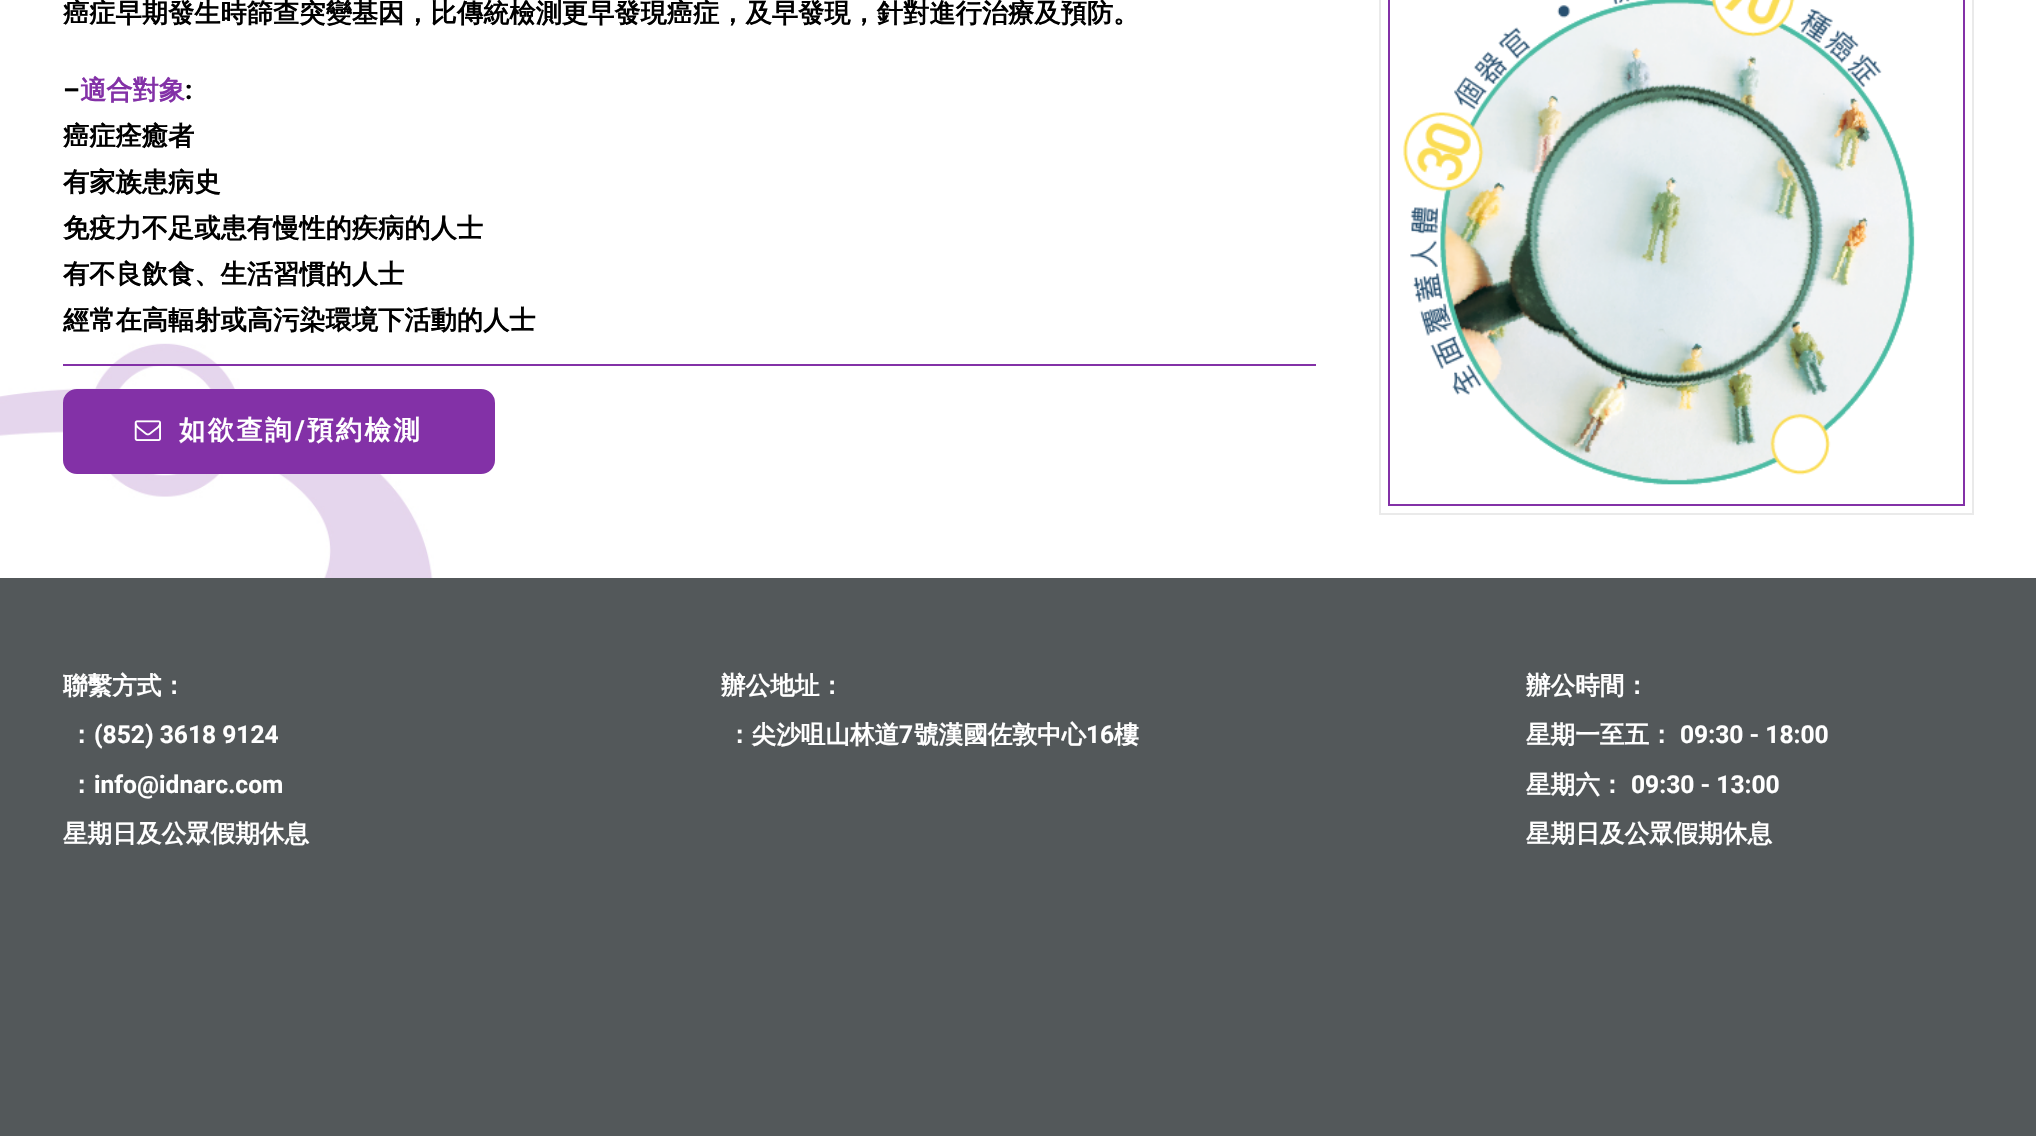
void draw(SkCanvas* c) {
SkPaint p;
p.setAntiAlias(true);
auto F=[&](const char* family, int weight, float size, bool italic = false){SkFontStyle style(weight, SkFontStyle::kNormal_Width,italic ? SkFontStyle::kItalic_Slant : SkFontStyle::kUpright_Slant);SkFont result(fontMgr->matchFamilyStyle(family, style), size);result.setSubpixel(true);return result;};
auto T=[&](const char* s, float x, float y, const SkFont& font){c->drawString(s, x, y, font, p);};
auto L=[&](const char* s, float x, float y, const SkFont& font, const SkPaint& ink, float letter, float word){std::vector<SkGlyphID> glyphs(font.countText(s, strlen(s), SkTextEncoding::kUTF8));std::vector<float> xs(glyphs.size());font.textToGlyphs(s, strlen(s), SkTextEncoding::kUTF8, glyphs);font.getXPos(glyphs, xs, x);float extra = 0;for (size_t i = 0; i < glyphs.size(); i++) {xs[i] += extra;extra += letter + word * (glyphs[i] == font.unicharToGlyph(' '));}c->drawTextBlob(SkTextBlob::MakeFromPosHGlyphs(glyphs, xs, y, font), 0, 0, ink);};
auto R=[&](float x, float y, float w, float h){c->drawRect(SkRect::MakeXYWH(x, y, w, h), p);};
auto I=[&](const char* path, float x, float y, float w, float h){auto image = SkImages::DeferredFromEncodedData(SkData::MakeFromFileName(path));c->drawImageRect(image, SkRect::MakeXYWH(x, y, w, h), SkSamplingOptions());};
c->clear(0xffffffff);
I("1.png",0,343,434,235);
auto f1 = F("WenQuanYi Zen Hei",700,26.25);
p.setColor(0xff000000);
T("癌症早期發生時篩查突變基因，比傳統檢測更早發現癌症，及早發現，針對進行治療及預防。",63,22,f1);
auto f2 = F("Roboto",700,26.25);
T("–",63,99,f2);
p.setColor(0xff8331a7);
T("適合對象",80,99,f1);
p.setColor(0xff000000);
T(":",185,99,f2);
T("癌症痊癒者",63,145,f1);
T("有家族患病史",63,191,f1);
T("免疫力不足或患有慢性的疾病的人士",63,237,f1);
T("有不良飲食、生活習慣的人士",63,283,f1);
T("經常在高輻射或高污染環境下活動的人士",63,329,f1);
p.setColor(0xff8331a7);
R(63,364,1253,2);
c->drawRoundRect(SkRect::MakeXYWH(64,390,430,83),13,13,p);
p.setStroke(true);
p.setStrokeWidth(2);
c->drawRoundRect(SkRect::MakeXYWH(64,390,430,83),13,13,p);
I("2.png",134,420,27,21);
p.setStroke(false);
p.setColor(0xffffffff);
L("如欲查詢",179,439,f1,p,2.5,0);
L("/",295,439,f2,p,2.5,0);
L("預約檢測",307,439,f1,p,2.5,0);
p.setStroke(true);
p.setColor(0xffeaeaea);
c->drawRect(SkRect::MakeXYWH(1380,-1,593,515),p);
p.setColor(0xff8331a7);
c->drawRect(SkRect::MakeXYWH(1389,-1,575,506),p);
I("3.png",1403,0,512,485);
p.setStroke(false);
p.setColor(0xff53585a);
R(0,578,2036,558);
auto f3 = F("WenQuanYi Zen Hei",700,24.6);
p.setColor(0xffffffff);
T("聯繫方式：",63,694,f3);
T("：",69,743,f3);
auto f4 = F("Roboto",700,24.6);
T("(852) 3618 9124",94,743,f4);
T("：",69,793,f3);
T("info@idnarc.com",94,793,f4);
T("星期日及公眾假期休息",63,842,f3);
T("辦公地址：",721,694,f3);
T("：尖沙咀山林道",727,743,f3);
T("7",899,743,f4);
T("號漢國佐敦中心",914,743,f3);
T("16",1086,743,f4);
T("樓",1114,743,f3);
T("辦公時間：",1526,694,f3);
T("星期一至五：",1526,743,f3);
T("09:30 - 18:00",1680,743,f4);
T("星期六：",1526,793,f3);
T("09:30 - 13:00",1631,793,f4);
T("星期日及公眾假期休息",1526,842,f3);
}
